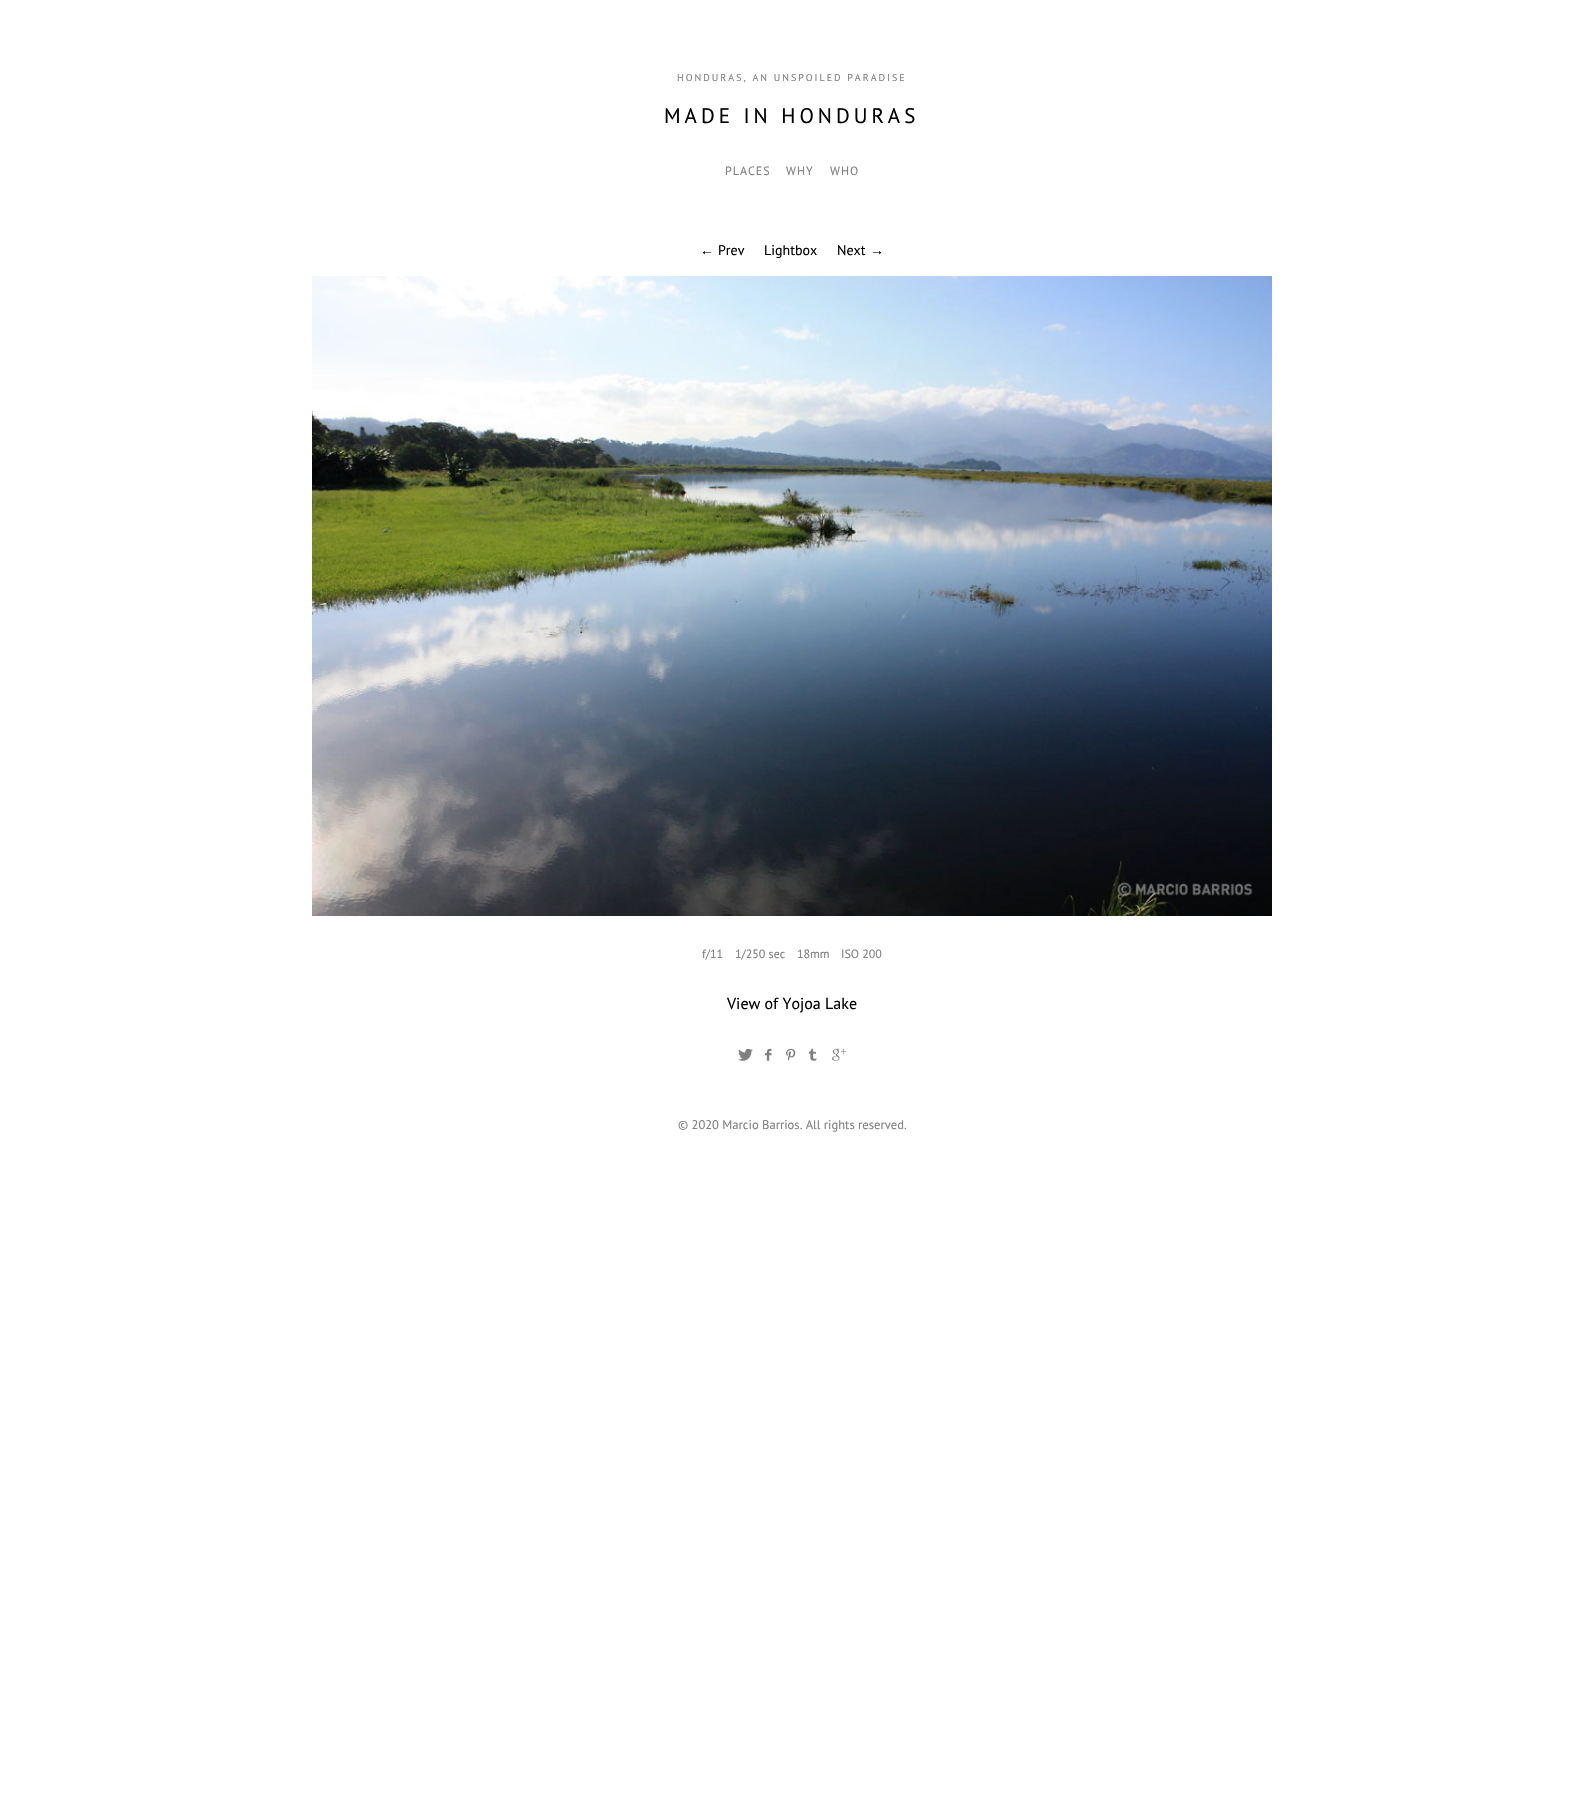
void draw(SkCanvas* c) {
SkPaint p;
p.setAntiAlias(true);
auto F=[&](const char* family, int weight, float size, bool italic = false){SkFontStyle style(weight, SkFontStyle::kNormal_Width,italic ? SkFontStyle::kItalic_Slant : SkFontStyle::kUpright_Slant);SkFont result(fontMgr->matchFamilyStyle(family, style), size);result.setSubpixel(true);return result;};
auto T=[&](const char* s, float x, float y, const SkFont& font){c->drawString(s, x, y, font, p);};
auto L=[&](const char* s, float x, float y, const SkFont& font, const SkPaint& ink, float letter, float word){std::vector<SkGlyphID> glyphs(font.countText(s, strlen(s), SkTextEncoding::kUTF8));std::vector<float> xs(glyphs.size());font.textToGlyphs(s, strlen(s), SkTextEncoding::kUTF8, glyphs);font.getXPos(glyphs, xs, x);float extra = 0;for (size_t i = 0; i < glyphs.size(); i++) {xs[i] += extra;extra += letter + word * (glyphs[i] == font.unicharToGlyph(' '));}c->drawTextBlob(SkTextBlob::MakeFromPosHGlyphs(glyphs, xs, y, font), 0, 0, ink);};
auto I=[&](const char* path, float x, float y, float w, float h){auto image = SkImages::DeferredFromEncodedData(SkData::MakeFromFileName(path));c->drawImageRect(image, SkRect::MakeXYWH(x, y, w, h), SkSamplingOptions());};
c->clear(0xffffffff);
auto f1 = F("PT Sans",400,10);
p.setColor(0xff808080);
L("HONDURAS, AN UNSPOILED PARADISE",677,81,f1,p,2,0);
auto f2 = F("PT Sans",400,21);
p.setColor(0xff000000);
L("MADE IN HONDURAS",664,123,f2,p,4,0);
auto f3 = F("PT Sans",400,12);
p.setColor(0xff808080);
L("PLACES",725,175,f3,p,1,0);
L("WHY",786,175,f3,p,1,0);
L("WHO",830,175,f3,p,1,0);
auto f4 = F("Liberation Sans",400,14);
p.setColor(0xff000000);
T("←",700,255,f4);
auto f5 = F("PT Sans",400,14);
T("Prev",718,255,f5);
T("Lightbox",764,255,f5);
T("Next",837,255,f5);
T("→",870,255,f4);
I("1.png",312,276,960,640);
p.setColor(0xff808080);
T("f/11",702,958,f3);
T("1/250 sec",735,958,f3);
T("18mm",797,958,f3);
T("ISO 200",841,958,f3);
auto f6 = F("PT Sans",400,16);
p.setColor(0xff000000);
T("View of Yojoa Lake",727,1009,f6);
I("2.png",738,1048,15,13);
I("3.png",765,1048,7,13);
I("4.png",786,1048,10,13);
I("5.png",809,1048,8,13);
I("6.png",832,1048,15,13);
auto f7 = F("PT Sans",400,12.6);
p.setColor(0xff808080);
T("© 2020 Marcio Barrios. All rights reserved.",678,1129,f7);
}
